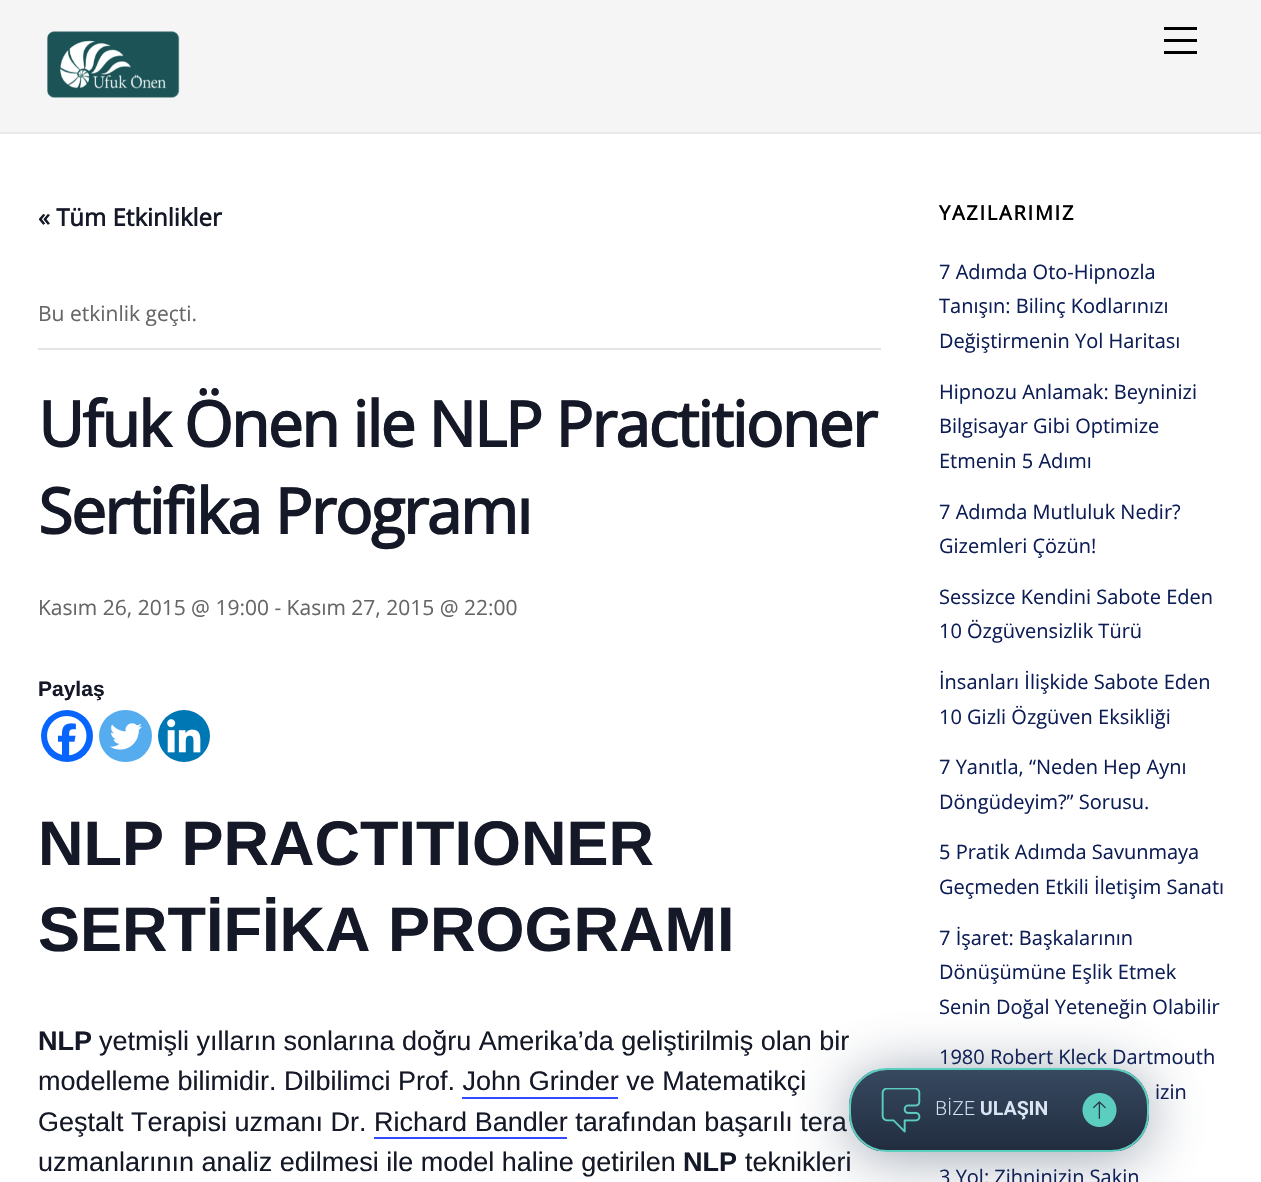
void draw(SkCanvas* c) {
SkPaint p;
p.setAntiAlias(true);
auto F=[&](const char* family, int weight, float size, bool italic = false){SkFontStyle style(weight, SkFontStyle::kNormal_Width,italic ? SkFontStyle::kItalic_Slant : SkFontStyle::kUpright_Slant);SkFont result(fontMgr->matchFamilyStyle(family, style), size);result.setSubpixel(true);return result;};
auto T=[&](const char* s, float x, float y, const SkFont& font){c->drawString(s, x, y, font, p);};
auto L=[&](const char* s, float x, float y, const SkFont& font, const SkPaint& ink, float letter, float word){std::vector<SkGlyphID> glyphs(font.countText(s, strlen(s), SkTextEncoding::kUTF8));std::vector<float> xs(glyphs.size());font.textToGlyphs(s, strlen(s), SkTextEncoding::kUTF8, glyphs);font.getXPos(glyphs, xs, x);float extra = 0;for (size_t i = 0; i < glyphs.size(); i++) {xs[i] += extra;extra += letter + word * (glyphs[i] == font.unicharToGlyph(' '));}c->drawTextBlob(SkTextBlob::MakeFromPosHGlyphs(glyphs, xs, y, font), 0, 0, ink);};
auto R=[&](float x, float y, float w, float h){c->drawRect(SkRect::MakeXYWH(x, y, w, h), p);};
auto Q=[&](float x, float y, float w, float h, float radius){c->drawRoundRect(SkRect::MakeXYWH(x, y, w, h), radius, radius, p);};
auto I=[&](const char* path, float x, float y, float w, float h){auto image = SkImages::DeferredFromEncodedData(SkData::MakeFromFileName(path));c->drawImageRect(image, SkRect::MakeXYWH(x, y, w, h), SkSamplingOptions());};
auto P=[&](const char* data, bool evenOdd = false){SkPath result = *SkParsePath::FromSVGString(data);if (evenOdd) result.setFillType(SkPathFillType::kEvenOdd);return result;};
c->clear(0xffffffff);
p.setColor(0xfff5f5f5);
R(0,0,1261,132);
p.setColor(0xffe9e9e9);
R(0,132,1261,2);
I("1.png",47,31,133,67);
p.setColor(0xff000000);
R(1164,51,33,3);
R(1164,27,33,3);
R(1164,39,33,3);
auto f1 = F("Open Sans",700,24);
p.setColor(0xff141827);
T("« Tüm Etkinlikler",38,226,f1);
p.setColor(0xffe4e4e4);
R(38,348,843,2);
auto f2 = F("Open Sans",400,21);
p.setColor(0xff666666);
T("Bu etkinlik geçti.",38,321,f2);
auto f3 = F("Open Sans",700,63);
p.setColor(0xff141827);
L("Ufuk Önen ile NLP Practitioner",38,447,f3,p,-1.9,0);
L("Sertifika Programı",38,534,f3,p,-1.9,0);
p.setColor(0xff666666);
T("Kasım 26, 2015 @ 19:00 - Kasım 27, 2015 @ 22:00",38,615,f2);
auto f4 = F("Liberation Sans",700,21);
p.setColor(0xff141827);
T("Paylaş",38,696,f4);
p.setColor(0xff0765fe);
c->drawCircle(67,736,26,p);
I("2.png",47,716,40,40);
p.setColor(0xff55acee);
Q(99,710,53,52,26);
I("3.png",110,723,32,27);
p.setColor(0xff0077b5);
c->drawCircle(184,736,26,p);
I("4.png",167,719,34,34);
auto f5 = F("Liberation Sans",700,63);
p.setColor(0xff141827);
T("NLP PRACTITIONER",38,865,f5);
T("SERTİFİKA PROGRAMI",38,951,f5);
auto f6 = F("Liberation Sans",700,27);
T("NLP",38,1050,f6);
auto f7 = F("Liberation Sans",400,27);
T("yetmişli yılların sonlarına doğru Amerika’da geliştirilmiş olan bir",99,1050,f7);
T("modelleme bilimidir. Dilbilimci Prof. John Grinder ve Matematikçi",38,1090,f7);
p.setColor(0xff334aff);
R(462,1097,156,2);
p.setColor(0xff141827);
T("Geştalt Terapisi uzmanı Dr. Richard Bandler tarafından başarılı tera",38,1131,f7);
p.setColor(0xff334aff);
R(374,1137,193,2);
p.setColor(0xff141827);
T("uzmanlarının analiz edilmesi ile model haline getirilen",38,1171,f7);
T("NLP",683,1171,f6);
T("teknikleri",745,1171,f7);
auto f8 = F("Open Sans",700,20);
p.setColor(0xff000000);
L("YAZILARIMIZ",939,220,f8,p,1.75,0);
auto f9 = F("Open Sans",400,20);
p.setColor(0xff0d1d56);
T("7 Adımda Oto-Hipnozla",939,279,f9);
T("Tanışın: Bilinç Kodlarınızı",939,313,f9);
T("Değiştirmenin Yol Haritası",939,348,f9);
T("Hipnozu Anlamak: Beyninizi",939,399,f9);
T("Bilgisayar Gibi Optimize",939,433,f9);
T("Etmenin 5 Adımı",939,468,f9);
T("7 Adımda Mutluluk Nedir?",939,519,f9);
T("Gizemleri Çözün!",939,553,f9);
T("Sessizce Kendini Sabote Eden",939,604,f9);
T("10 Özgüvensizlik Türü",939,638,f9);
T("İnsanları İlişkide Sabote Eden",939,689,f9);
T("10 Gizli Özgüven Eksikliği",939,724,f9);
T("7 Yanıtla, “Neden Hep Aynı",939,774,f9);
T("Döngüdeyim?” Sorusu.",939,809,f9);
T("5 Pratik Adımda Savunmaya",939,859,f9);
T("Geçmeden Etkili İletişim Sanatı",939,894,f9);
T("7 İşaret: Başkalarının",939,945,f9);
T("Dönüşümüne Eşlik Etmek",939,979,f9);
T("Senin Doğal Yeteneğin Olabilir",939,1014,f9);
T("1980 Robert Kleck Dartmouth",939,1064,f9);
T("izin",1155,1099,f9);
T("3 Yol: Zihninizin Sakin",939,1184,f9);
p.setColor(0x8036485f);
p.setMaskFilter(SkMaskFilter::MakeBlur(kNormal_SkBlurStyle, 30));
c->drawRoundRect(SkRect::MakeXYWH(849,1073,300,84),38,38,p);
p.setMaskFilter(nullptr);
c->save();
c->clipPath(P("M887 1068h224c21 0 38 17 38 38v8c0 21-17 38-38 38h-224c-21 0-38-17-38-38v-8c0-21 17-38 38-38z"),true);
{
const SkColor colors[] = {0xff374960,0xff212d3f};
const float stops[] = {0,1};
const SkPoint ends[] = {{999,1070}, {999,1151}};
p.setShader(SkGradientShader::MakeLinear(ends, colors, stops, 2, SkTileMode::kClamp));
p.setAlpha(255);
}
R(849,1070,300,81);
c->restore();
p.setStroke(true);
p.setStrokeWidth(2);
p.setShader(nullptr);
p.setColor(0xff5ccebf);
c->drawRoundRect(SkRect::MakeXYWH(850,1069,298,82),37,37,p);
I("5.png",881,1088,236,45);
}
